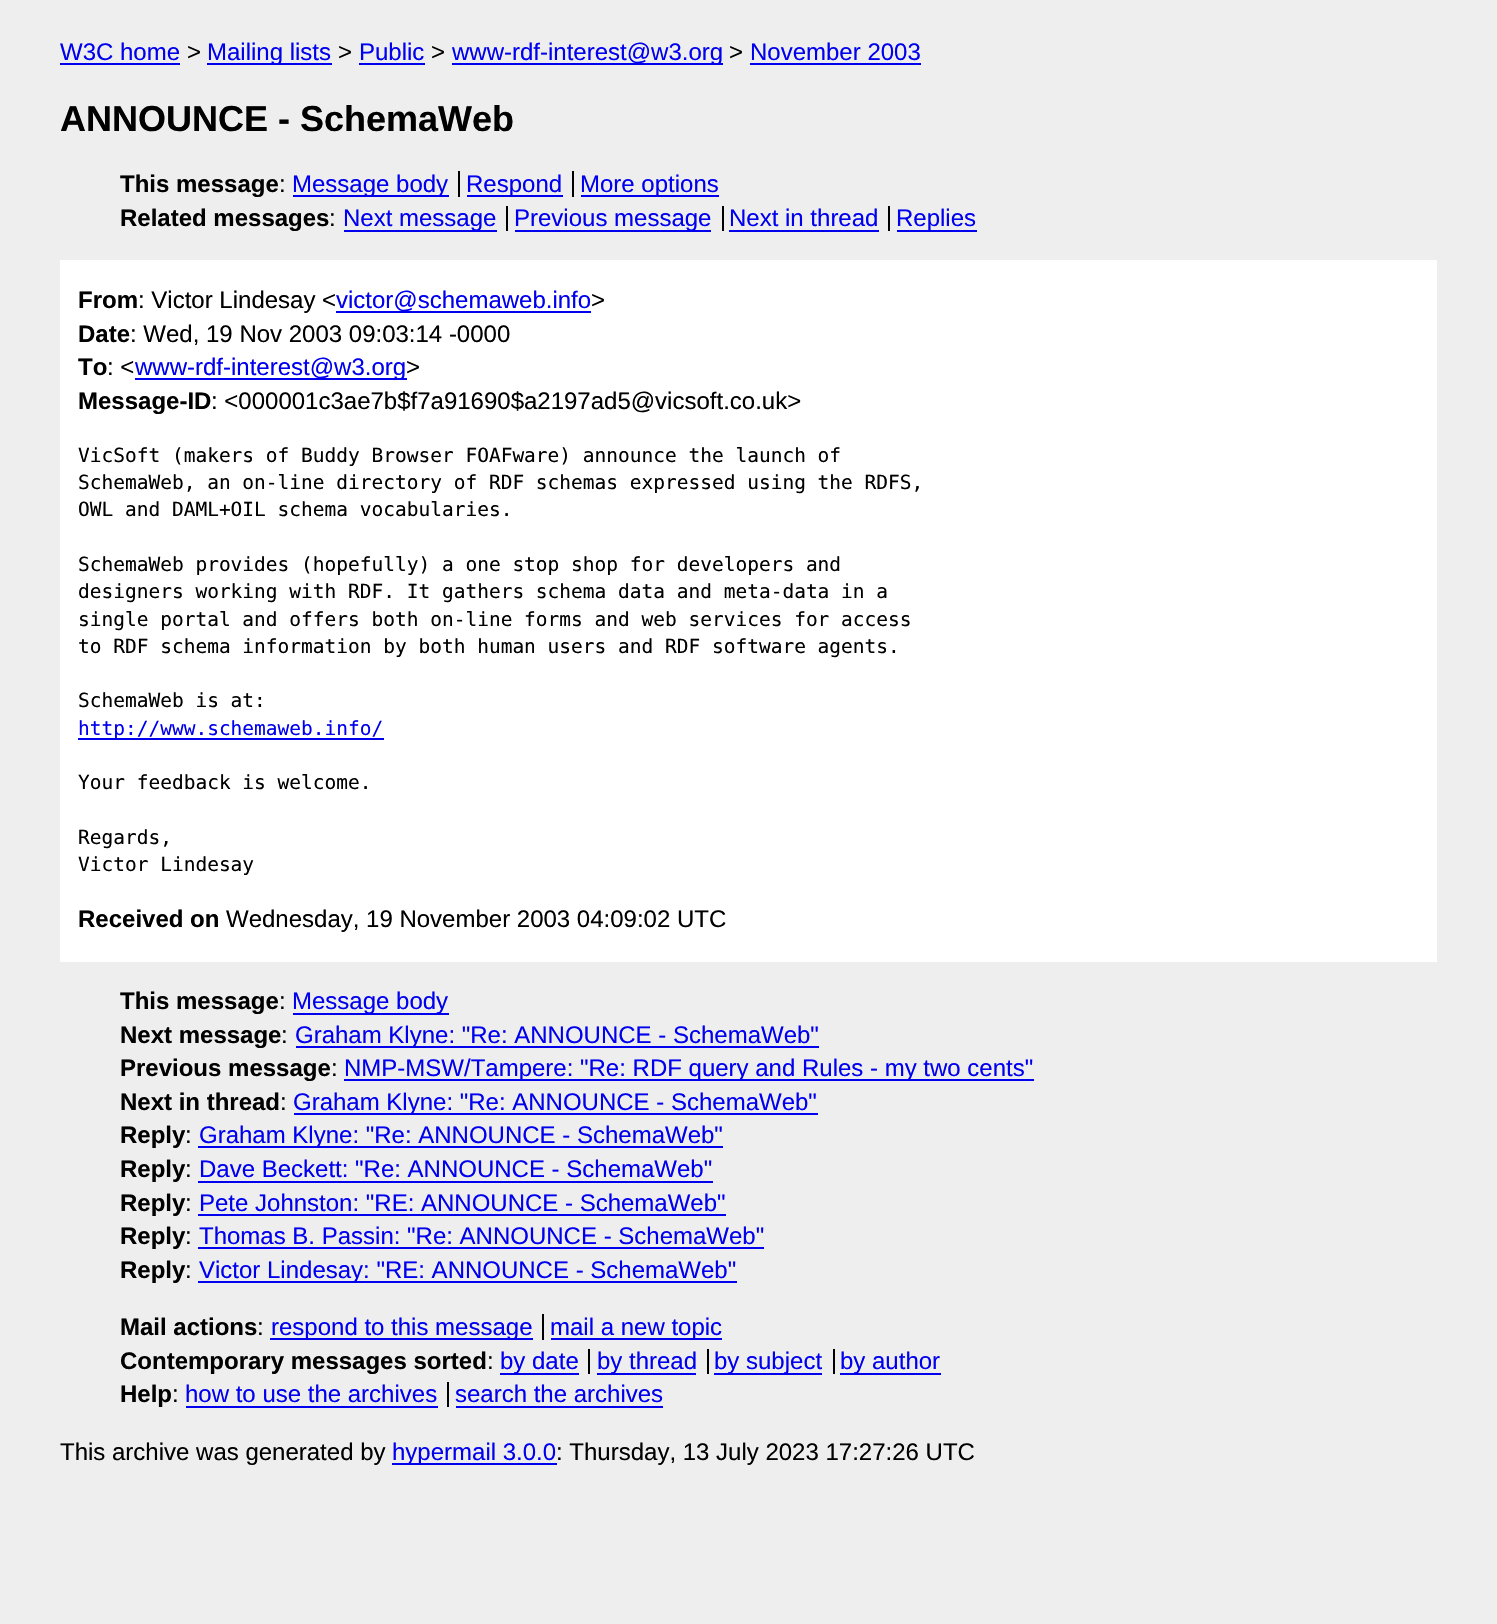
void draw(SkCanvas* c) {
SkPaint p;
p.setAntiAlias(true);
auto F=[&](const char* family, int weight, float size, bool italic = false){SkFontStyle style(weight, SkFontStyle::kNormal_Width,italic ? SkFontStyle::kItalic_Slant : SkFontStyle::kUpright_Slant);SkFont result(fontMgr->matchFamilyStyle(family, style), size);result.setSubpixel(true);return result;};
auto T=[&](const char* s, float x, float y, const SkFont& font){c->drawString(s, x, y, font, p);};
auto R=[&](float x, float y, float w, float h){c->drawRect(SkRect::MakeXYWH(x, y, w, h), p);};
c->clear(0xffeeeeee);
auto f1 = F("Liberation Sans",400,24);
p.setColor(0xff0000ee);
T("W3C home",60,60,f1);
R(60,63,120,2);
p.setColor(0xff000000);
T(">",187,60,f1);
p.setColor(0xff0000ee);
R(207,63,125,2);
T("Mailing lists",207,60,f1);
p.setColor(0xff000000);
T(">",338,60,f1);
p.setColor(0xff0000ee);
T("Public",359,60,f1);
R(359,63,66,2);
p.setColor(0xff000000);
T(">",431,60,f1);
p.setColor(0xff0000ee);
R(452,63,271,2);
T("www-rdf-interest@w3.org",452,60,f1);
p.setColor(0xff000000);
T(">",729,60,f1);
p.setColor(0xff0000ee);
T("November 2003",750,60,f1);
R(750,63,171,2);
auto f2 = F("Liberation Sans",700,36);
p.setColor(0xff000000);
T("ANNOUNCE - SchemaWeb",60,131,f2);
auto f3 = F("Liberation Sans",700,24);
T("This message",120,192,f3);
T(":",279,192,f1);
p.setColor(0xff0000ee);
R(293,195,156,2);
T("Message body",292,192,f1);
R(467,195,96,2);
T("Respond",466,192,f1);
p.setColor(0xff000000);
R(458,171,2,26);
p.setColor(0xff0000ee);
R(581,195,138,2);
T("More options",580,192,f1);
p.setColor(0xff000000);
R(572,171,2,26);
T("Related messages",120,226,f3);
T(":",329,226,f1);
p.setColor(0xff0000ee);
R(344,230,153,2);
T("Next message",343,226,f1);
R(515,230,196,2);
T("Previous message",514,226,f1);
p.setColor(0xff000000);
R(506,206,2,25);
p.setColor(0xff0000ee);
T("Next in thread",729,226,f1);
p.setColor(0xff000000);
R(722,206,2,25);
p.setColor(0xff0000ee);
R(729,230,150,2);
R(897,230,80,2);
T("Replies",896,226,f1);
p.setColor(0xff000000);
R(888,206,2,25);
p.setColor(0xffffffff);
R(60,260,1377,702);
p.setColor(0xff000000);
T("From",78,308,f3);
T(": Victor Lindesay <",138,308,f1);
p.setColor(0xff0000ee);
R(336,311,255,2);
T("victor@schemaweb.info",336,308,f1);
p.setColor(0xff000000);
T(">",591,308,f1);
T("Date",78,342,f3);
T(": Wed, 19 Nov 2003 09:03:14 -0000",130,342,f1);
T("To",78,375,f3);
T(": <",107,375,f1);
p.setColor(0xff0000ee);
R(135,378,272,2);
T("www-rdf-interest@w3.org",135,375,f1);
p.setColor(0xff000000);
T(">",406,375,f1);
T("Message-ID",78,409,f3);
T(": <000001c3ae7b$f7a91690$a2197ad5@vicsoft.co.uk>",211,409,f1);
auto f4 = F("DejaVu Sans Mono",400,19.5);
T("VicSoft (makers of Buddy Browser FOAFware) announce the launch of",78,462,f4);
T("SchemaWeb, an on-line directory of RDF schemas expressed using the RDFS,",78,489,f4);
T("OWL and DAML+OIL schema vocabularies.",78,516,f4);
T("SchemaWeb provides (hopefully) a one stop shop for developers and",78,571,f4);
T("designers working with RDF. It gathers schema data and meta-data in a",78,598,f4);
T("single portal and offers both on-line forms and web services for access",78,626,f4);
T("to RDF schema information by both human users and RDF software agents.",78,653,f4);
T("SchemaWeb is at:",78,707,f4);
p.setColor(0xff0000ee);
R(78,738,306,2);
T("http://www.schemaweb.info/",78,735,f4);
p.setColor(0xff000000);
T("Your feedback is welcome.",78,789,f4);
T("Regards,",78,844,f4);
T("Victor Lindesay",78,871,f4);
T("Received on",78,927,f3);
T("Wednesday, 19 November 2003 04:09:02 UTC",226,927,f1);
T("This message",120,1009,f3);
T(":",279,1009,f1);
p.setColor(0xff0000ee);
R(293,1013,156,2);
T("Message body",292,1009,f1);
p.setColor(0xff000000);
T("Next message",120,1043,f3);
T(":",281,1043,f1);
p.setColor(0xff0000ee);
R(296,1046,523,2);
T("Graham Klyne: \"Re: ANNOUNCE - SchemaWeb\"",295,1043,f1);
p.setColor(0xff000000);
T("Previous message",120,1076,f3);
T(":",331,1076,f1);
p.setColor(0xff0000ee);
R(344,1079,690,2);
T("NMP-MSW/Tampere: \"Re: RDF query and Rules - my two cents\"",344,1076,f1);
p.setColor(0xff000000);
T("Next in thread",120,1110,f3);
T(":",280,1110,f1);
p.setColor(0xff0000ee);
R(294,1113,524,2);
T("Graham Klyne: \"Re: ANNOUNCE - SchemaWeb\"",293,1110,f1);
p.setColor(0xff000000);
T("Reply",120,1143,f3);
T(":",185,1143,f1);
p.setColor(0xff0000ee);
R(198,1146,525,2);
T("Graham Klyne: \"Re: ANNOUNCE - SchemaWeb\"",199,1143,f1);
p.setColor(0xff000000);
T("Reply",120,1177,f3);
T(":",185,1177,f1);
p.setColor(0xff0000ee);
T("Dave Beckett: \"Re: ANNOUNCE - SchemaWeb\"",199,1177,f1);
R(198,1181,515,2);
p.setColor(0xff000000);
T("Reply",120,1211,f3);
T(":",185,1211,f1);
p.setColor(0xff0000ee);
T("Pete Johnston: \"RE: ANNOUNCE - SchemaWeb\"",199,1211,f1);
R(198,1214,528,2);
p.setColor(0xff000000);
T("Reply",120,1244,f3);
T(":",185,1244,f1);
p.setColor(0xff0000ee);
T("Thomas B. Passin: \"Re: ANNOUNCE - SchemaWeb\"",199,1244,f1);
R(198,1247,566,2);
p.setColor(0xff000000);
T("Reply",120,1278,f3);
T(":",185,1278,f1);
p.setColor(0xff0000ee);
R(198,1281,539,2);
T("Victor Lindesay: \"RE: ANNOUNCE - SchemaWeb\"",199,1278,f1);
p.setColor(0xff000000);
T("Mail actions",120,1335,f3);
T(":",257,1335,f1);
p.setColor(0xff0000ee);
R(270,1338,263,2);
T("respond to this message",271,1335,f1);
R(551,1338,171,2);
T("mail a new topic",550,1335,f1);
p.setColor(0xff000000);
R(542,1314,2,26);
T("Contemporary messages sorted",120,1369,f3);
T(":",487,1369,f1);
p.setColor(0xff0000ee);
R(500,1373,79,2);
T("by date",500,1369,f1);
R(597,1373,99,2);
T("by thread",597,1369,f1);
p.setColor(0xff000000);
R(588,1349,2,25);
p.setColor(0xff0000ee);
R(714,1373,108,2);
T("by subject",714,1369,f1);
p.setColor(0xff000000);
R(707,1349,2,25);
p.setColor(0xff0000ee);
R(840,1373,101,2);
T("by author",840,1369,f1);
p.setColor(0xff000000);
R(833,1349,2,25);
T("Help",120,1402,f3);
T(":",172,1402,f1);
p.setColor(0xff0000ee);
T("how to use the archives",185,1402,f1);
R(186,1406,252,2);
T("search the archives",455,1402,f1);
p.setColor(0xff000000);
R(447,1382,2,25);
p.setColor(0xff0000ee);
R(456,1406,207,2);
p.setColor(0xff000000);
T("This archive was generated by",60,1460,f1);
p.setColor(0xff0000ee);
R(392,1463,165,2);
T("hypermail 3.0.0",392,1460,f1);
p.setColor(0xff000000);
T(": Thursday, 13 July 2023 17:27:26 UTC",556,1460,f1);
}
